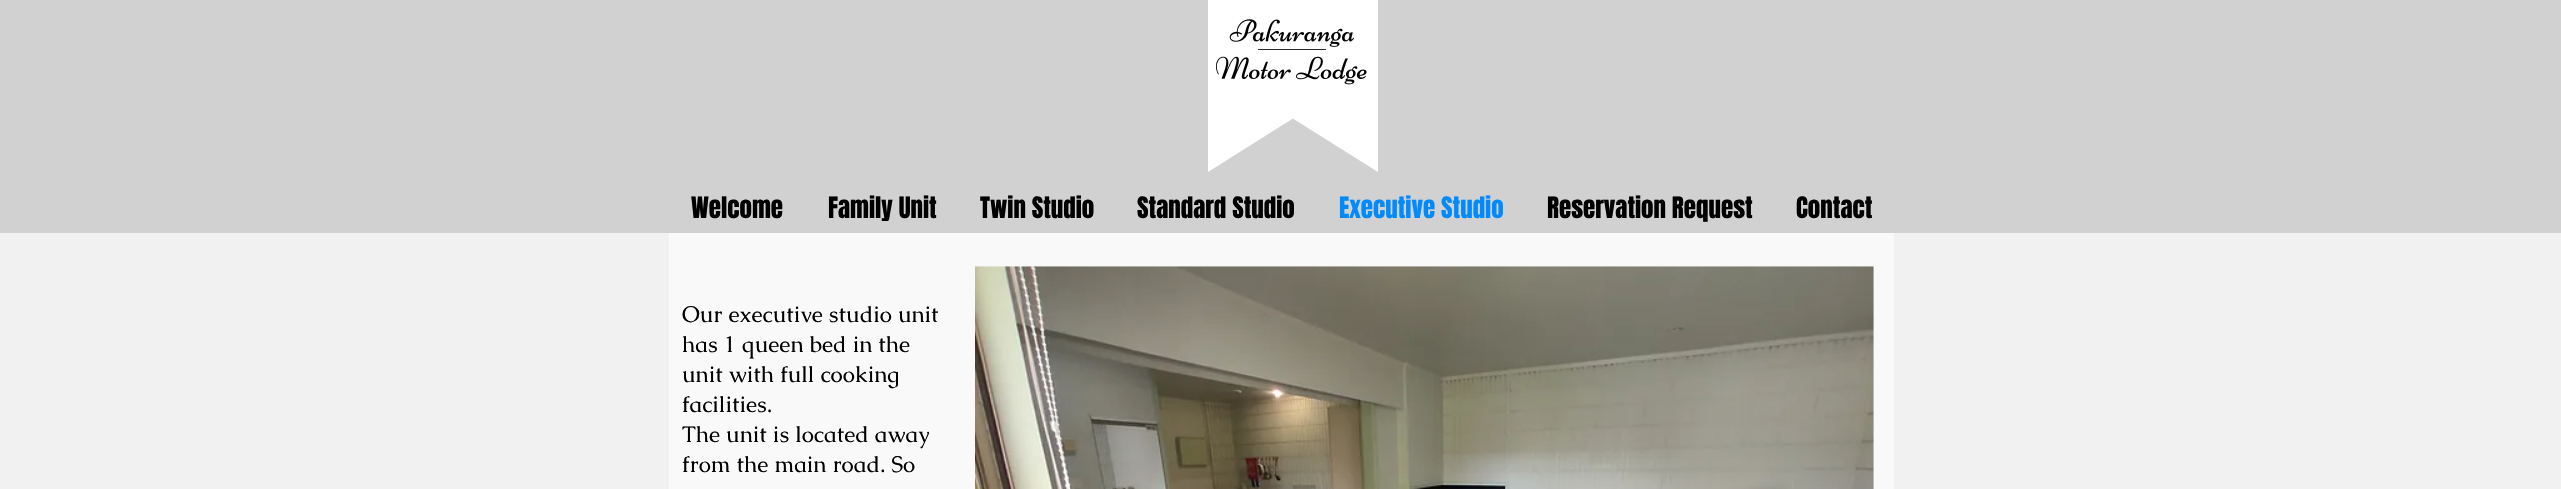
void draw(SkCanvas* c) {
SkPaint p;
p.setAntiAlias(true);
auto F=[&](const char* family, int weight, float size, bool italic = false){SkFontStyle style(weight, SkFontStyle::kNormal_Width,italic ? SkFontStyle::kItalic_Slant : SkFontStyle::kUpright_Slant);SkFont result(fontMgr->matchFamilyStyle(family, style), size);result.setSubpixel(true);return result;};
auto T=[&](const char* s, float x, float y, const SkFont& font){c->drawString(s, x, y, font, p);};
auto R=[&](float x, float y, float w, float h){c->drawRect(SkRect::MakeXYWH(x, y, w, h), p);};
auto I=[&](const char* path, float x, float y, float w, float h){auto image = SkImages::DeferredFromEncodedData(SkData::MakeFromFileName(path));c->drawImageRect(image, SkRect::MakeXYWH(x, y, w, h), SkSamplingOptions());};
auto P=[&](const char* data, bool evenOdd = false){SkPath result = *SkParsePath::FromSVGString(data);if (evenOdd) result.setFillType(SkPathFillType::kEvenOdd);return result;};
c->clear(0xffd1d1d1);
p.setColor(0xffffffff);
R(1208,0,170,85);
p.setColor(0xff2a2a2a);
R(1258,49,68,1);
I("1.png",1229,19,126,28);
I("2.png",1215,56,152,29);
c->save();
c->clipRect(SkRect::MakeXYWH(1208,85,170,88));
p.setColor(0xffffffff);
c->drawPath(P("M1208 172v-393h624z"),p);
c->drawPath(P("M1378-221v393l-626-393z"),p);
c->restore();
auto f1 = F("Anton",400,25);
p.setColor(0xff000000);
T("Welcome",691,218,f1);
T("Family Unit",828,218,f1);
T("Twin Studio",980,218,f1);
T("Standard Studio",1137,218,f1);
p.setColor(0xff008afc);
T("Executive Studio",1339,218,f1);
p.setColor(0xff000000);
T("Reservation Request",1547,218,f1);
T("Contact",1796,218,f1);
p.setColor(0xfff1f1f1);
R(0,233,2561,256);
p.setColor(0xfff9f9f9);
R(669,233,1225,256);
auto f2 = F("Caudex",400,22.5);
p.setColor(0xff000000);
T("Our executive studio unit",682,322,f2);
T("has 1 queen bed in the",682,352,f2);
T("unit with full cooking",682,382,f2);
T("facilities.",682,412,f2);
T("The unit is located away",682,442,f2);
T("from the main road. So",682,472,f2);
I("3.png",975,266,899,223);
}
